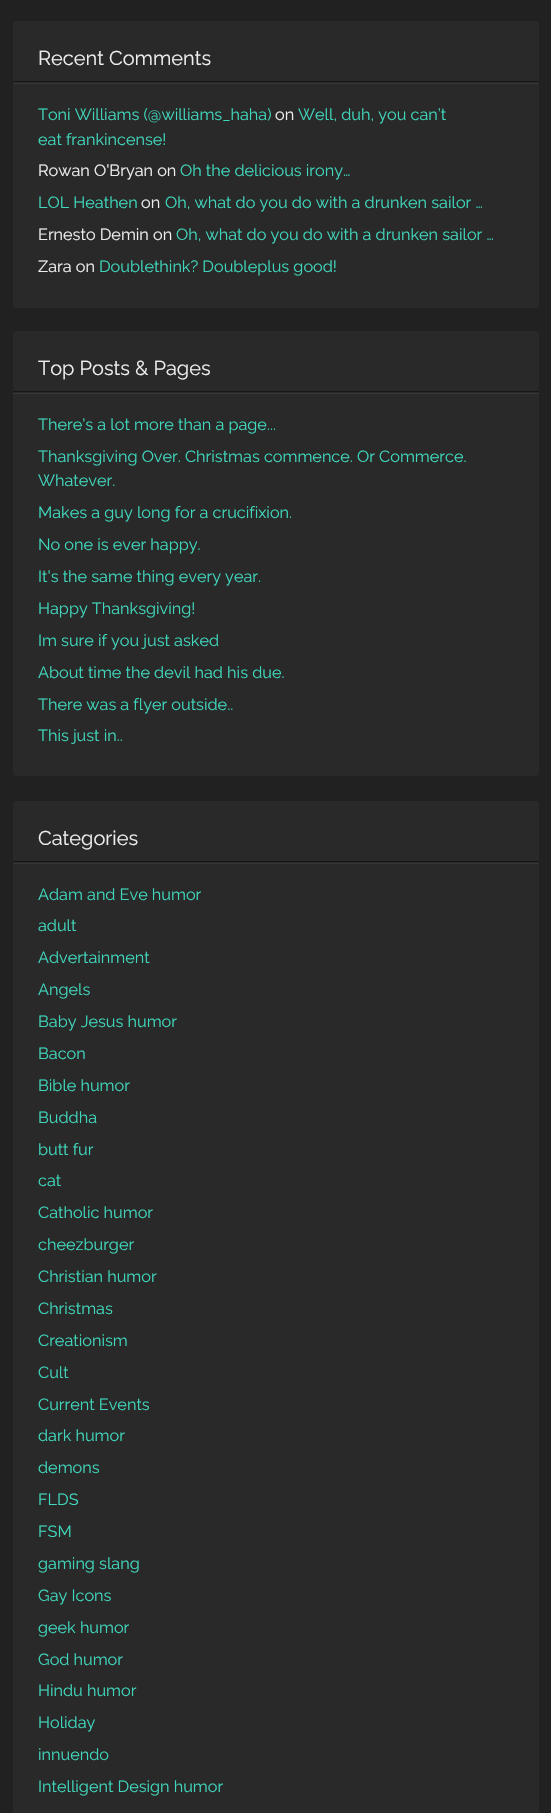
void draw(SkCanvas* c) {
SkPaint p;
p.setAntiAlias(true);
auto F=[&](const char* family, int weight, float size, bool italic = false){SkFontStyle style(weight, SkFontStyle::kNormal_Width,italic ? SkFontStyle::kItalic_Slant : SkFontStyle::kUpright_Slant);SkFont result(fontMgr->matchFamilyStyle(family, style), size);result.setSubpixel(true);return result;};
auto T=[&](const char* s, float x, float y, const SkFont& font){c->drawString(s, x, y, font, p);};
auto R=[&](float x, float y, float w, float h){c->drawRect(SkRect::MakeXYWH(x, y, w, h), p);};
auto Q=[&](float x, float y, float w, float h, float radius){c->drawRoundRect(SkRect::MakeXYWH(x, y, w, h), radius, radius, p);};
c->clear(0xff212121);
p.setColor(0xff292929);
Q(13,21,526,287,4);
p.setColor(0xff363636);
R(13,83,526,1);
auto f1 = F("Raleway",400,20);
p.setColor(0xffeeeeee);
T("Recent Comments",38,65,f1);
p.setColor(0xff161616);
R(13,81,526,1);
auto f2 = F("Raleway",400,16.25);
p.setColor(0xff40d7bc);
T("Toni Williams (@williams_haha)",38,120,f2);
p.setColor(0xffeeeeee);
T("on",275,120,f2);
p.setColor(0xff40d7bc);
T("Well, duh, you can’t",298,120,f2);
T("eat frankincense!",38,145,f2);
p.setColor(0xffeeeeee);
T("Rowan O'Bryan on",38,176,f2);
p.setColor(0xff40d7bc);
T("Oh the delicious irony…",180,176,f2);
T("LOL Heathen",38,208,f2);
p.setColor(0xffeeeeee);
T("on",141,208,f2);
p.setColor(0xff40d7bc);
T("Oh, what do you do with a drunken sailor …",165,208,f2);
p.setColor(0xffeeeeee);
T("Ernesto Demin on",38,240,f2);
p.setColor(0xff40d7bc);
T("Oh, what do you do with a drunken sailor …",176,240,f2);
p.setColor(0xffeeeeee);
T("Zara on",38,272,f2);
p.setColor(0xff40d7bc);
T("Doublethink? Doubleplus good!",99,272,f2);
p.setColor(0xff292929);
Q(13,331,526,445,4);
p.setColor(0xff363636);
R(13,393,526,1);
p.setColor(0xffeeeeee);
T("Top Posts & Pages",38,375,f1);
p.setColor(0xff161616);
R(13,391,526,1);
p.setColor(0xff40d7bc);
T("There's a lot more than a page...",38,430,f2);
T("Thanksgiving Over. Christmas commence. Or Commerce.",38,462,f2);
T("Whatever.",38,486,f2);
T("Makes a guy long for a crucifixion.",38,518,f2);
T("No one is ever happy.",38,550,f2);
T("It's the same thing every year.",38,582,f2);
T("Happy Thanksgiving!",38,614,f2);
T("Im sure if you just asked",38,646,f2);
T("About time the devil had his due.",38,678,f2);
T("There was a flyer outside..",38,710,f2);
T("This just in..",38,741,f2);
p.setColor(0xff292929);
Q(13,801,526,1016,4);
p.setColor(0xff363636);
R(13,863,526,1);
p.setColor(0xffeeeeee);
T("Categories",38,845,f1);
p.setColor(0xff161616);
R(13,861,526,1);
p.setColor(0xff40d7bc);
T("Adam and Eve humor",38,900,f2);
T("adult",38,931,f2);
T("Advertainment",38,963,f2);
T("Angels",38,995,f2);
T("Baby Jesus humor",38,1027,f2);
T("Bacon",38,1059,f2);
T("Bible humor",38,1091,f2);
T("Buddha",38,1123,f2);
T("butt fur",38,1155,f2);
T("cat",38,1186,f2);
T("Catholic humor",38,1218,f2);
T("cheezburger",38,1250,f2);
T("Christian humor",38,1282,f2);
T("Christmas",38,1314,f2);
T("Creationism",38,1346,f2);
T("Cult",38,1378,f2);
T("Current Events",38,1410,f2);
T("dark humor",38,1441,f2);
T("demons",38,1473,f2);
T("FLDS",38,1505,f2);
T("FSM",38,1537,f2);
T("gaming slang",38,1569,f2);
T("Gay Icons",38,1601,f2);
T("geek humor",38,1633,f2);
T("God humor",38,1665,f2);
T("Hindu humor",38,1696,f2);
T("Holiday",38,1728,f2);
T("innuendo",38,1760,f2);
T("Intelligent Design humor",38,1792,f2);
}
